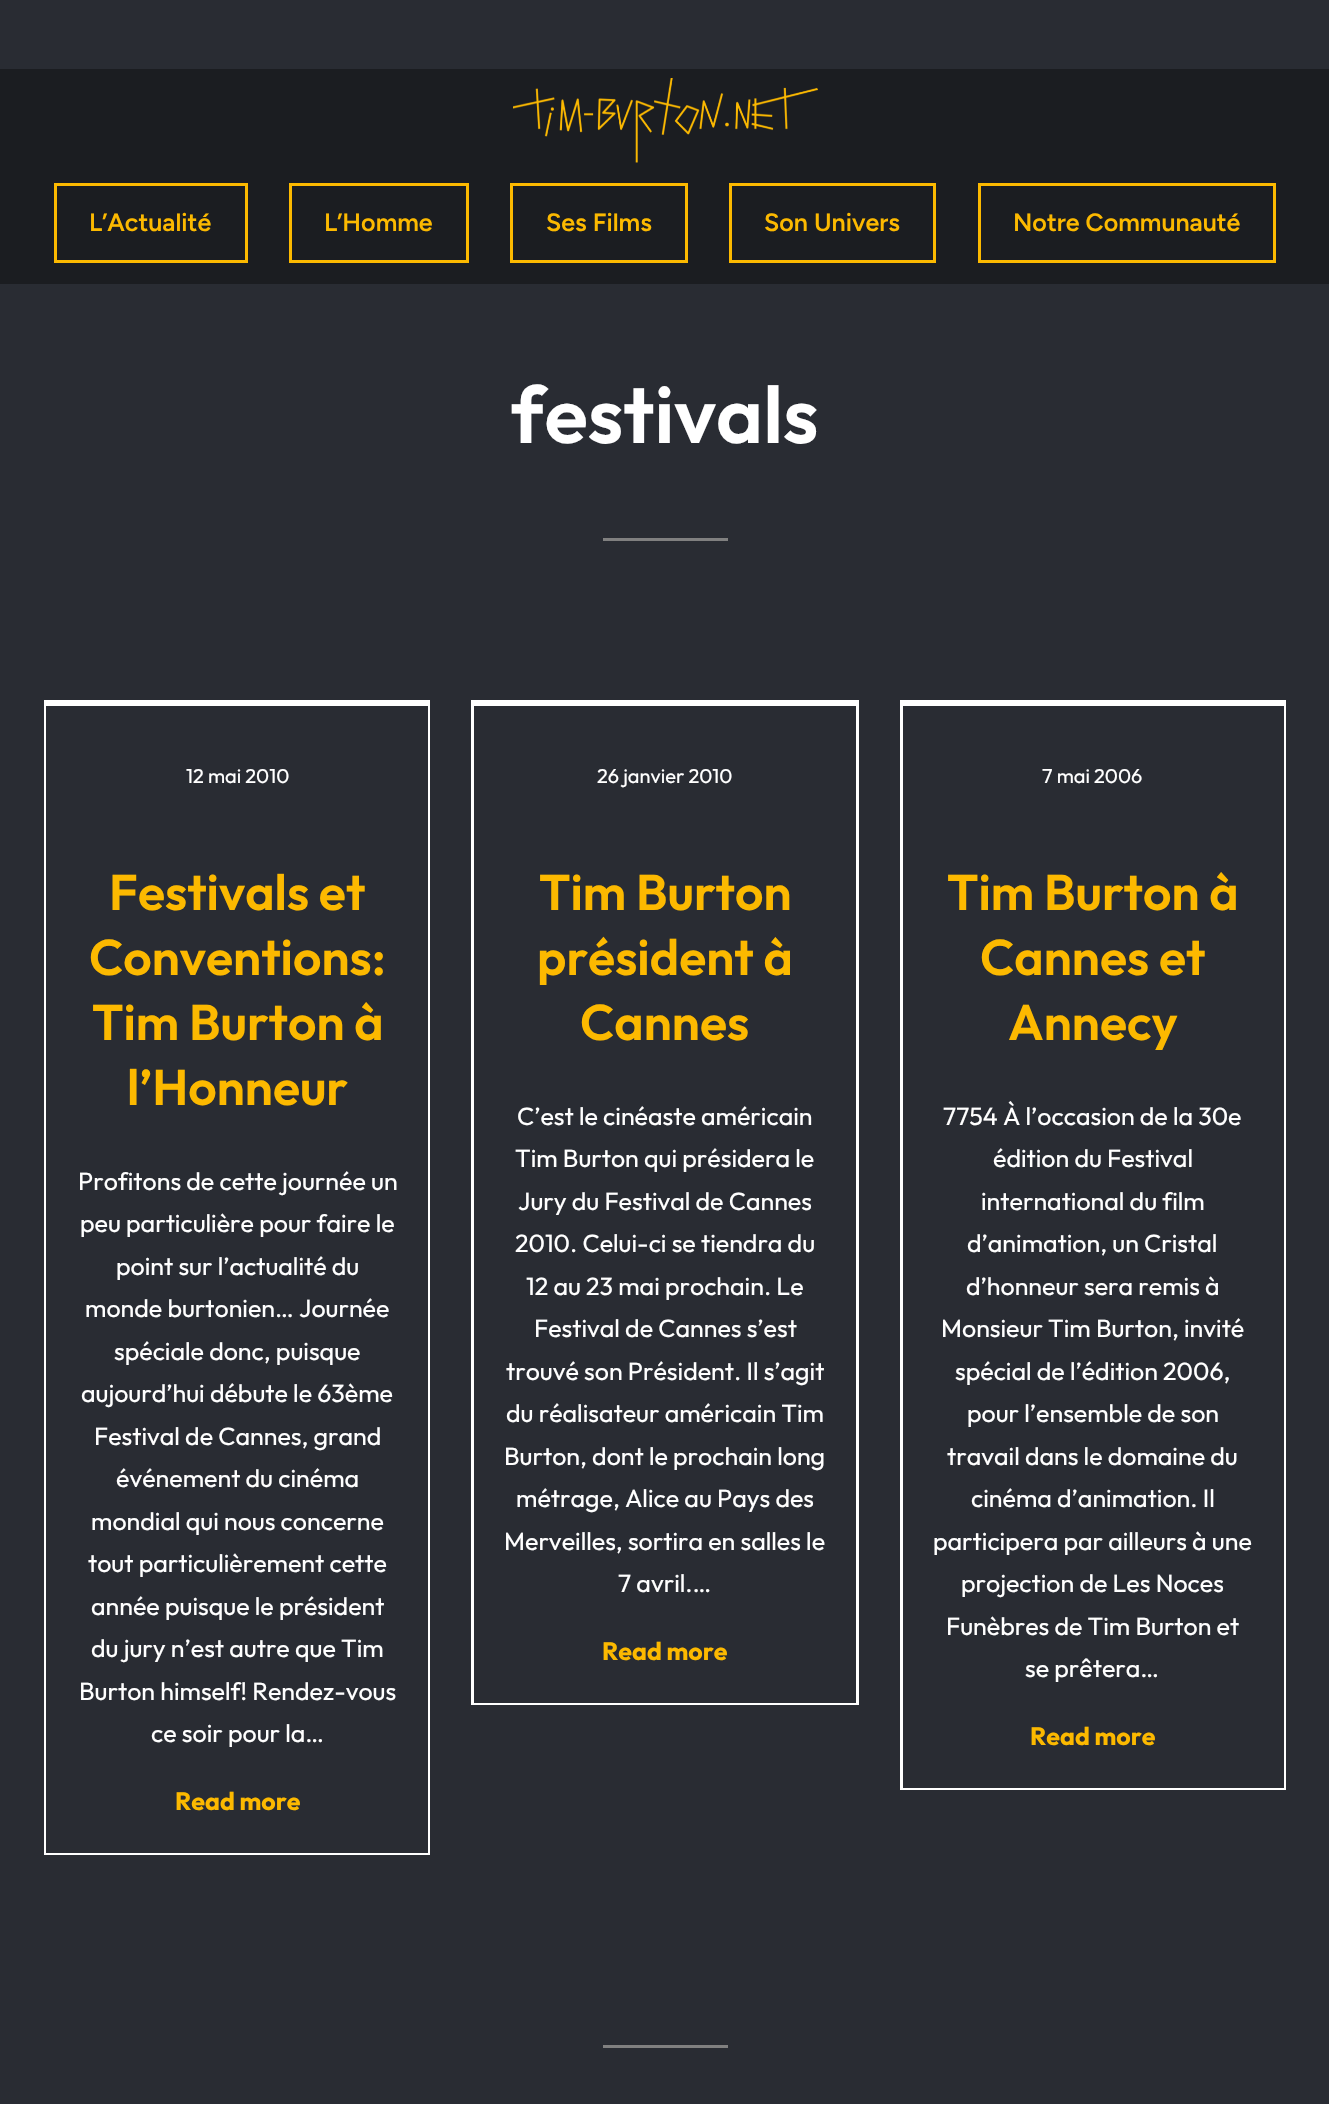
void draw(SkCanvas* c) {
SkPaint p;
p.setAntiAlias(true);
auto F=[&](const char* family, int weight, float size, bool italic = false){SkFontStyle style(weight, SkFontStyle::kNormal_Width,italic ? SkFontStyle::kItalic_Slant : SkFontStyle::kUpright_Slant);SkFont result(fontMgr->matchFamilyStyle(family, style), size);result.setSubpixel(true);return result;};
auto T=[&](const char* s, float x, float y, const SkFont& font){c->drawString(s, x, y, font, p);};
auto R=[&](float x, float y, float w, float h){c->drawRect(SkRect::MakeXYWH(x, y, w, h), p);};
auto I=[&](const char* path, float x, float y, float w, float h){auto image = SkImages::DeferredFromEncodedData(SkData::MakeFromFileName(path));c->drawImageRect(image, SkRect::MakeXYWH(x, y, w, h), SkSamplingOptions());};
c->clear(0xff292c33);
p.setColor(0xff1b1d21);
R(0,69,1329,215);
I("1.png",513,78,305,85);
p.setStroke(true);
p.setStrokeWidth(3);
p.setColor(0xfffcb900);
c->drawRect(SkRect::MakeXYWH(55.5,184.5,191,77),p);
auto f1 = F("Figtree",600,25);
p.setStroke(false);
T("L’Actualité",89,231,f1);
p.setStroke(true);
c->drawRect(SkRect::MakeXYWH(290.5,184.5,177,77),p);
p.setStroke(false);
T("L’Homme",324,231,f1);
p.setStroke(true);
c->drawRect(SkRect::MakeXYWH(511.5,184.5,175,77),p);
p.setStroke(false);
T("Ses Films",546,231,f1);
p.setStroke(true);
c->drawRect(SkRect::MakeXYWH(730.5,184.5,204,77),p);
p.setStroke(false);
T("Son Univers",764,231,f1);
p.setStroke(true);
c->drawRect(SkRect::MakeXYWH(979.5,184.5,295,77),p);
p.setStroke(false);
T("Notre Communauté",1013,231,f1);
auto f2 = F("Outfit",600,80);
p.setColor(0xffffffff);
T("festivals",511,443,f2);
p.setColor(0xff808080);
R(603,538,125,3);
p.setStroke(true);
p.setColor(0xffffffff);
c->drawRect(SkRect::MakeXYWH(45.5,701.5,383,1152),p);
p.setStroke(false);
p.setColor(0xff292c33);
R(46,706,382,1147);
p.setColor(0xffffffff);
R(46,703,382,3);
auto f3 = F("Outfit",400,20);
T("12 mai 2010",186,783,f3);
auto f4 = F("Outfit",600,50);
p.setColor(0xfffcb900);
T("Festivals et",109,910,f4);
T("Conventions:",89,975,f4);
T("Tim Burton à",92,1040,f4);
T("l’Honneur",127,1105,f4);
auto f5 = F("Outfit",400,25);
p.setColor(0xffffffff);
T("Profitons de cette journée un",78,1190,f5);
T("peu particulière pour faire le",80,1232,f5);
T("point sur l’actualité du",116,1275,f5);
T("monde burtonien… Journée",85,1317,f5);
T("spéciale donc, puisque",114,1360,f5);
T("aujourd’hui débute le 63ème",81,1402,f5);
T("Festival de Cannes, grand",94,1445,f5);
T("événement du cinéma",116,1487,f5);
T("mondial qui nous concerne",91,1530,f5);
T("tout particulièrement cette",88,1572,f5);
T("année puisque le président",91,1615,f5);
T("du jury n’est autre que Tim",91,1657,f5);
T("Burton himself! Rendez-vous",79,1700,f5);
T("ce soir pour la…",151,1742,f5);
auto f6 = F("Outfit",700,25);
p.setColor(0xfffcb900);
T("Read more",175,1810,f6);
p.setStroke(true);
p.setColor(0xffffffff);
c->drawRect(SkRect::MakeXYWH(472.5,701.5,385,1002),p);
p.setStroke(false);
p.setColor(0xff292c33);
R(474,1702,382,1);
p.setColor(0xffffffff);
R(474,703,382,3);
T("26 janvier 2010",597,783,f3);
p.setColor(0xfffcb900);
T("Tim Burton",539,910,f4);
T("président à",537,975,f4);
T("Cannes",580,1040,f4);
p.setColor(0xffffffff);
T("C’est le cinéaste américain",517,1125,f5);
T("Tim Burton qui présidera le",515,1167,f5);
T("Jury du Festival de Cannes",518,1210,f5);
T("2010. Celui-ci se tiendra du",515,1252,f5);
T("12 au 23 mai prochain. Le",526,1295,f5);
T("Festival de Cannes s’est",534,1337,f5);
T("trouvé son Président. Il s’agit",506,1380,f5);
T("du réalisateur américain Tim",506,1422,f5);
T("Burton, dont le prochain long",504,1465,f5);
T("métrage, Alice au Pays des",516,1507,f5);
T("Merveilles, sortira en salles le",504,1550,f5);
T("7 avril.…",618,1592,f5);
p.setColor(0xfffcb900);
T("Read more",602,1660,f6);
p.setStroke(true);
p.setColor(0xffffffff);
c->drawRect(SkRect::MakeXYWH(901.5,701.5,383,1087),p);
p.setStroke(false);
p.setColor(0xff292c33);
R(903,706,381,1082);
p.setColor(0xffffffff);
R(903,703,381,3);
T("7 mai 2006",1042,783,f3);
p.setColor(0xfffcb900);
T("Tim Burton à",947,910,f4);
T("Cannes et",980,975,f4);
T("Annecy",1008,1040,f4);
p.setColor(0xffffffff);
T("7754 À l’occasion de la 30e",943,1125,f5);
T("édition du Festival",993,1167,f5);
T("international du film",981,1210,f5);
T("d’animation, un Cristal",967,1252,f5);
T("d’honneur sera remis à",966,1295,f5);
T("Monsieur Tim Burton, invité",941,1337,f5);
T("spécial de l’édition 2006,",955,1380,f5);
T("pour l’ensemble de son",967,1422,f5);
T("travail dans le domaine du",947,1465,f5);
T("cinéma d’animation. Il",971,1507,f5);
T("participera par ailleurs à une",933,1550,f5);
T("projection de Les Noces",961,1592,f5);
T("Funèbres de Tim Burton et",946,1635,f5);
T("se prêtera…",1025,1677,f5);
p.setColor(0xfffcb900);
T("Read more",1030,1745,f6);
p.setColor(0xff808080);
R(603,2045,125,3);
}
